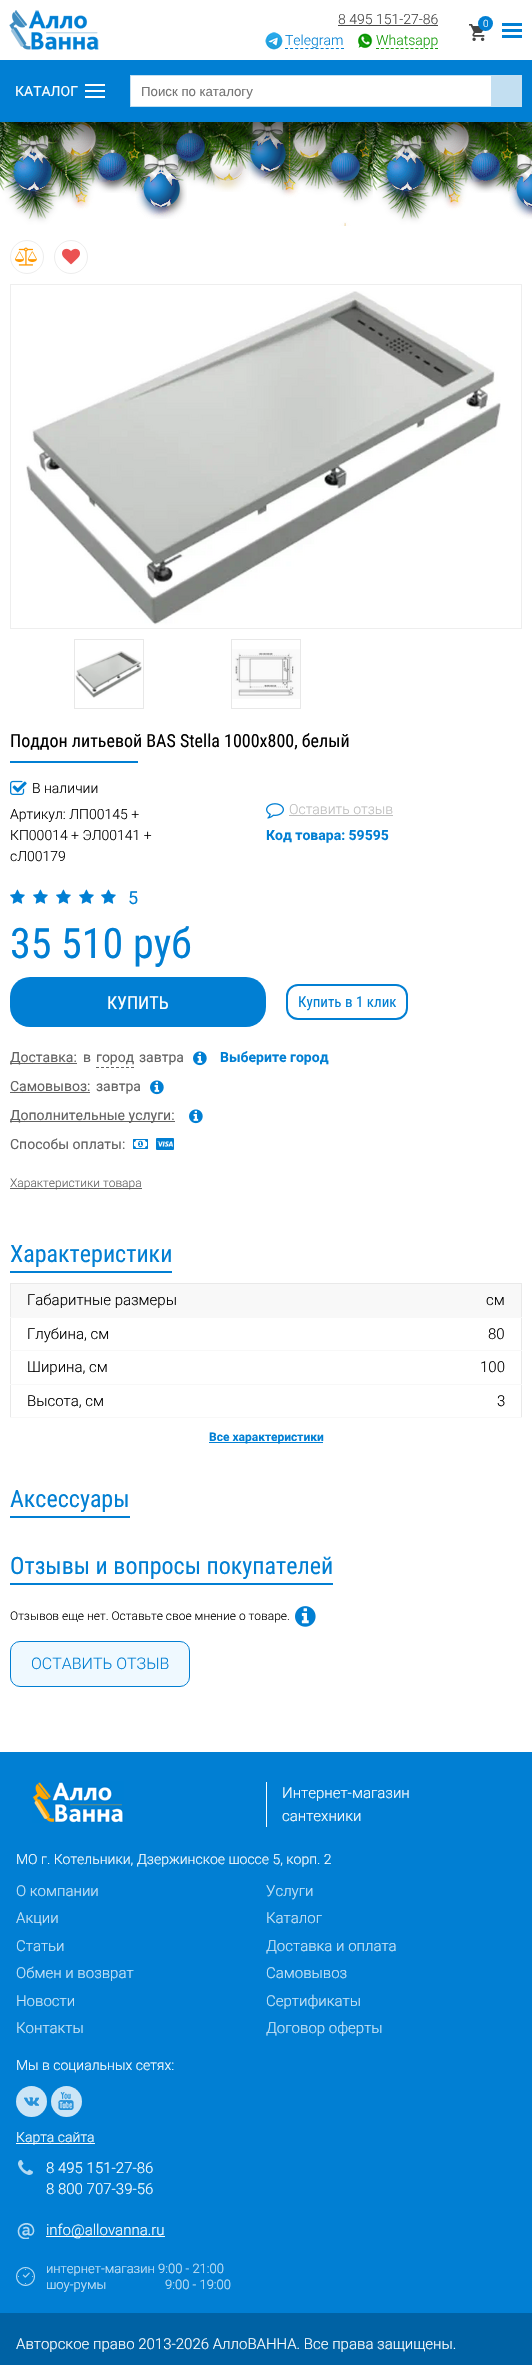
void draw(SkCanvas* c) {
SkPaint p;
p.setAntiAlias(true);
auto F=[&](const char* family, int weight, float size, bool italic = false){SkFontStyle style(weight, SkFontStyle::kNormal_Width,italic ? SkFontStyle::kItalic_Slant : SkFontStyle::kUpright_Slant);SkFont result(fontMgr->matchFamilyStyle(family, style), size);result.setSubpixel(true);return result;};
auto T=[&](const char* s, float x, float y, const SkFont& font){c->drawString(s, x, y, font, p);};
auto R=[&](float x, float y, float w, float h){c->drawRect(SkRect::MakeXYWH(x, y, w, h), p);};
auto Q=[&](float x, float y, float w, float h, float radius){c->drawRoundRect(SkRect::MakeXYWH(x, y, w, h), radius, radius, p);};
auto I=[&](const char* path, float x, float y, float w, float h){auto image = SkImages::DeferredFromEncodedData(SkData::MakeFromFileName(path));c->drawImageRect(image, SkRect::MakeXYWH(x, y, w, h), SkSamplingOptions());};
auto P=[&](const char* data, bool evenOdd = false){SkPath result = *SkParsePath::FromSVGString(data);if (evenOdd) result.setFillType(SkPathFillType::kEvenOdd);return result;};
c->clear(0xffffffff);
I("1.png",0,122,532,104);
I("3.png",6,122,52,80);
I("2.png",0,122,25,69);
I("5.png",54,122,49,45);
I("4.png",25,122,61,25);
I("6.png",136,122,51,97);
I("7.png",169,122,40,51);
I("12.png",204,126,45,66);
I("9.png",243,122,48,62);
I("8.png",205,122,50,48);
I("10.png",287,122,46,47);
I("11.png",92,129,40,64);
I("15.png",325,130,41,63);
I("13.png",289,122,78,26);
I("14.png",367,122,6,67);
I("3.png",379,122,52,80);
I("2.png",373,122,25,69);
I("5.png",427,122,49,45);
I("4.png",398,122,61,25);
I("11.png",465,129,40,64);
I("16.png",509,152,23,67);
p.setColor(0xbf000000);
p.setMaskFilter(SkMaskFilter::MakeBlur(kNormal_SkBlurStyle, 15));
c->drawRect(SkRect::MakeXYWH(0,20,532,115),p);
p.setMaskFilter(nullptr);
p.setColor(0xffffffff);
R(0,0,532,60);
I("17.png",9,10,90,40);
auto f1 = F("Roboto",300,14);
p.setColor(0xff454545);
T("8 495 151-27-86",338,24,f1);
R(338,25,100,1);
I("18.png",265,32,18,18);
p.setColor(0xff017fd3);
T("Telegram",285,45,f1);
p.setStroke(true);
p.setStrokeWidth(1);
p.setPathEffect(SkDashPathEffect::Make({{3,2.09f}}, 0));
c->drawPath(P("M285 48.5h59"),p);
p.setPathEffect(nullptr);
I("19.png",358,33,15,15);
p.setStroke(false);
p.setColor(0xff189d0d);
T("Whatsapp",376,45,f1);
p.setStroke(true);
p.setPathEffect(SkDashPathEffect::Make({{3,1.92f}}, 0));
c->drawPath(P("M376 48.5h62"),p);
p.setPathEffect(nullptr);
I("20.png",469,24,16,17);
p.setStroke(false);
p.setColor(0xff017fd3);
c->drawCircle(485.5,23.5,7.5,p);
auto f2 = F("Roboto",300,10);
p.setColor(0xffffffff);
T("0",483,27,f2);
p.setColor(0xff017fd3);
R(502,23,20,3);
R(502,29,20,3);
R(502,35,20,3);
R(0,60,532,62);
auto f3 = F("Roboto",400,14);
p.setColor(0xffffffff);
T("КАТАЛОГ",15,96,f3);
R(85,84,20,2);
R(85,90,20,2);
R(85,96,20,2);
p.setStroke(true);
p.setColor(0xffc3dff1);
c->drawRect(SkRect::MakeXYWH(130.5,75.5,391,31),p);
p.setStroke(false);
p.setColor(0xffffffff);
R(131,76,360,30);
auto f4 = F("Liberation Sans",400,13.25);
p.setColor(0xff757575);
T("Поиск по каталогу",141,96,f4);
p.setColor(0xffc3dff1);
R(491,76,30,30);
p.setStroke(true);
p.setColor(0xffededed);
c->drawCircle(27,257,16.5,p);
I("21.png",15,247,22,19);
c->drawCircle(71,257,16.5,p);
I("22.png",62,248,18,17);
p.setColor(0xffeeeeee);
c->drawRect(SkRect::MakeXYWH(10.5,284.5,511,344),p);
I("23.png",26,291,475,334);
p.setColor(0xffe8e8e8);
c->drawRect(SkRect::MakeXYWH(74.5,639.5,69,69),p);
I("24.png",75,651,67,47);
c->drawRect(SkRect::MakeXYWH(231.5,639.5,69,69),p);
I("25.png",232,649,68,50);
auto f5 = F("Roboto Condensed",400,18);
p.setStroke(false);
p.setColor(0xff000000);
T("Поддон литьевой BAS Stella 1000x800, белый",10,747,f5);
p.setColor(0xff017fd3);
R(10,761,128,2);
I("26.png",10,780,17,15);
p.setColor(0xff000000);
T("В наличии",32,793,f1);
T("Артикул: ЛП00145 +",10,819,f1);
T("КП00014 + ЭЛ00141 +",10,840,f1);
T("сЛ00179",10,861,f1);
I("27.png",266,803,18,16);
p.setColor(0xffbdbdbd);
T("Оставить отзыв",289,814,f1);
R(289,815,104,1);
auto f6 = F("Roboto",700,14);
p.setColor(0xff017fd3);
T("Код товара: 59595",266,840,f6);
I("28.png",10,889,15,15);
I("28.png",33,889,15,15);
I("28.png",56,889,15,15);
I("28.png",79,889,15,15);
I("28.png",101,889,15,15);
auto f7 = F("Roboto",400,18);
T("5",128,904,f7);
auto f8 = F("Roboto Condensed",400,42);
T("35 510 руб",10,958,f8);
Q(10,977,256,50,20);
p.setColor(0xffffffff);
T("КУПИТЬ",107,1009,f5);
p.setStroke(true);
p.setStrokeWidth(2);
p.setColor(0xff017fd3);
c->drawRoundRect(SkRect::MakeXYWH(287,985,120,34),11,11,p);
auto f9 = F("Roboto Condensed",400,15);
p.setStroke(false);
T("Купить в 1 клик",298,1007,f9);
p.setColor(0xff626262);
R(10,1063,67,1);
T("Доставка:",10,1062,f3);
T("в",83,1062,f3);
p.setStroke(true);
p.setStrokeWidth(1);
p.setPathEffect(SkDashPathEffect::Make({{3,2}}, 0));
c->drawPath(P("M96 1067.5h38"),p);
p.setPathEffect(nullptr);
p.setStroke(false);
T("город",96,1062,f3);
T("завтра",139,1062,f3);
I("29.png",193,1051,14,15);
p.setColor(0xff017fd3);
T("Выберите город",220,1062,f6);
p.setColor(0xff626262);
T("Самовывоз:",10,1091,f3);
R(10,1092,80,1);
T("завтра",96,1091,f3);
I("29.png",150,1080,14,15);
R(10,1121,165,1);
T("Дополнительные услуги:",10,1120,f3);
I("29.png",189,1109,14,15);
T("Способы оплаты:",10,1149,f3);
I("30.png",133,1139,15,10);
I("31.png",156,1138,18,12);
R(10,1188,132,1);
auto f10 = F("Roboto",300,12);
T("Характеристики товара",10,1187,f10);
auto f11 = F("Roboto Condensed",400,24);
p.setColor(0xff017fd3);
T("Характеристики",10,1262,f11);
R(10,1271,162,2);
p.setColor(0xffe9e9e9);
R(10,1283,512,1);
R(521,1283,1,135);
R(10,1283,1,135);
p.setColor(0xfff8f8f8);
R(11,1284,510,33);
R(10,1317,512,1);
auto f12 = F("Roboto",300,15);
p.setColor(0xff000000);
T("Габаритные размеры",27,1305,f12);
T("см",486,1305,f12);
p.setColor(0xfff8f8f8);
R(10,1350,512,1);
p.setColor(0xff000000);
T("Глубина, см",27,1339,f12);
T("80",488,1339,f12);
p.setColor(0xfff8f8f8);
R(10,1384,512,1);
p.setColor(0xff000000);
T("Ширина, см",27,1372,f12);
T("100",480,1372,f12);
p.setColor(0xfff8f8f8);
R(10,1417,512,1);
p.setColor(0xff000000);
T("Высота, см",27,1406,f12);
T("3",497,1406,f12);
p.setColor(0xff017fd3);
R(209,1442,114,1);
auto f13 = F("Roboto",700,12);
T("Все характеристики",209,1441,f13);
T("Аксессуары",10,1507,f11);
R(10,1516,120,2);
T("Отзывы и вопросы покупателей",10,1574,f11);
R(10,1583,323,2);
p.setColor(0xff000000);
T("Отзывов еще нет. Оставьте свое мнение о товаре.",10,1620,f10);
I("32.png",295,1606,21,21);
p.setColor(0xffeff9ff);
c->drawRoundRect(SkRect::MakeXYWH(10.5,1641.5,179,45),9.5,9.5,p);
p.setStroke(true);
p.setColor(0xff017fd3);
c->drawRoundRect(SkRect::MakeXYWH(10.5,1641.5,179,45),9.5,9.5,p);
auto f14 = F("Roboto",300,16);
p.setStroke(false);
T("ОСТАВИТЬ ОТЗЫВ",31,1669,f14);
R(0,1752,532,561);
I("33.png",32,1781,92,42);
p.setColor(0xffffffff);
R(266,1782,1,45);
T("Интернет-магазин",282,1798,f12);
T("сантехники",282,1821,f12);
T("МО г. Котельники, Дзержинское шоссе 5, корп. 2",16,1864,f1);
p.setColor(0xffcce5f6);
T("О компании",16,1896,f12);
T("Услуги",266,1896,f12);
T("Акции",16,1923,f12);
T("Каталог",266,1923,f12);
T("Статьи",16,1951,f12);
T("Доставка и оплата",266,1951,f12);
T("Обмен и возврат",16,1978,f12);
T("Самовывоз",266,1978,f12);
T("Новости",16,2006,f12);
T("Сертификаты",266,2006,f12);
T("Контакты",16,2033,f12);
T("Договор оферты",266,2033,f12);
p.setColor(0xffffffff);
T("Мы в социальных сетях:",16,2070,f1);
p.setColor(0xffcce5f6);
c->drawCircle(31.5,2101.5,15.5,p);
I("34.png",24,2097,15,9);
c->drawCircle(66.5,2101.5,15.5,p);
I("35.png",58,2092,16,18);
p.setColor(0xffffffff);
R(16,2143,79,1);
T("Карта сайта",16,2142,f1);
I("36.png",18,2160,15,15);
T("8 495 151-27-86",46,2173,f12);
T("8 800 707-39-56",46,2194,f12);
I("37.png",17,2223,18,16);
R(46,2236,119,1);
T("info@allovanna.ru",46,2235,f12);
I("38.png",16,2267,19,19);
auto f15 = F("Roboto",300,13);
p.setColor(0xffcce5f6);
T("интернет-магазин 9:00 - 21:00",46,2273,f15);
T("шоу-румы",46,2289,f15);
T("9:00 - 19:00",165,2289,f15);
p.setColor(0xff0062a4);
R(0,2313,532,52);
p.setColor(0xffffffff);
T("Авторское право 2013-2026 АллоВАННА. Все права защищены.",16,2349,f12);
}
